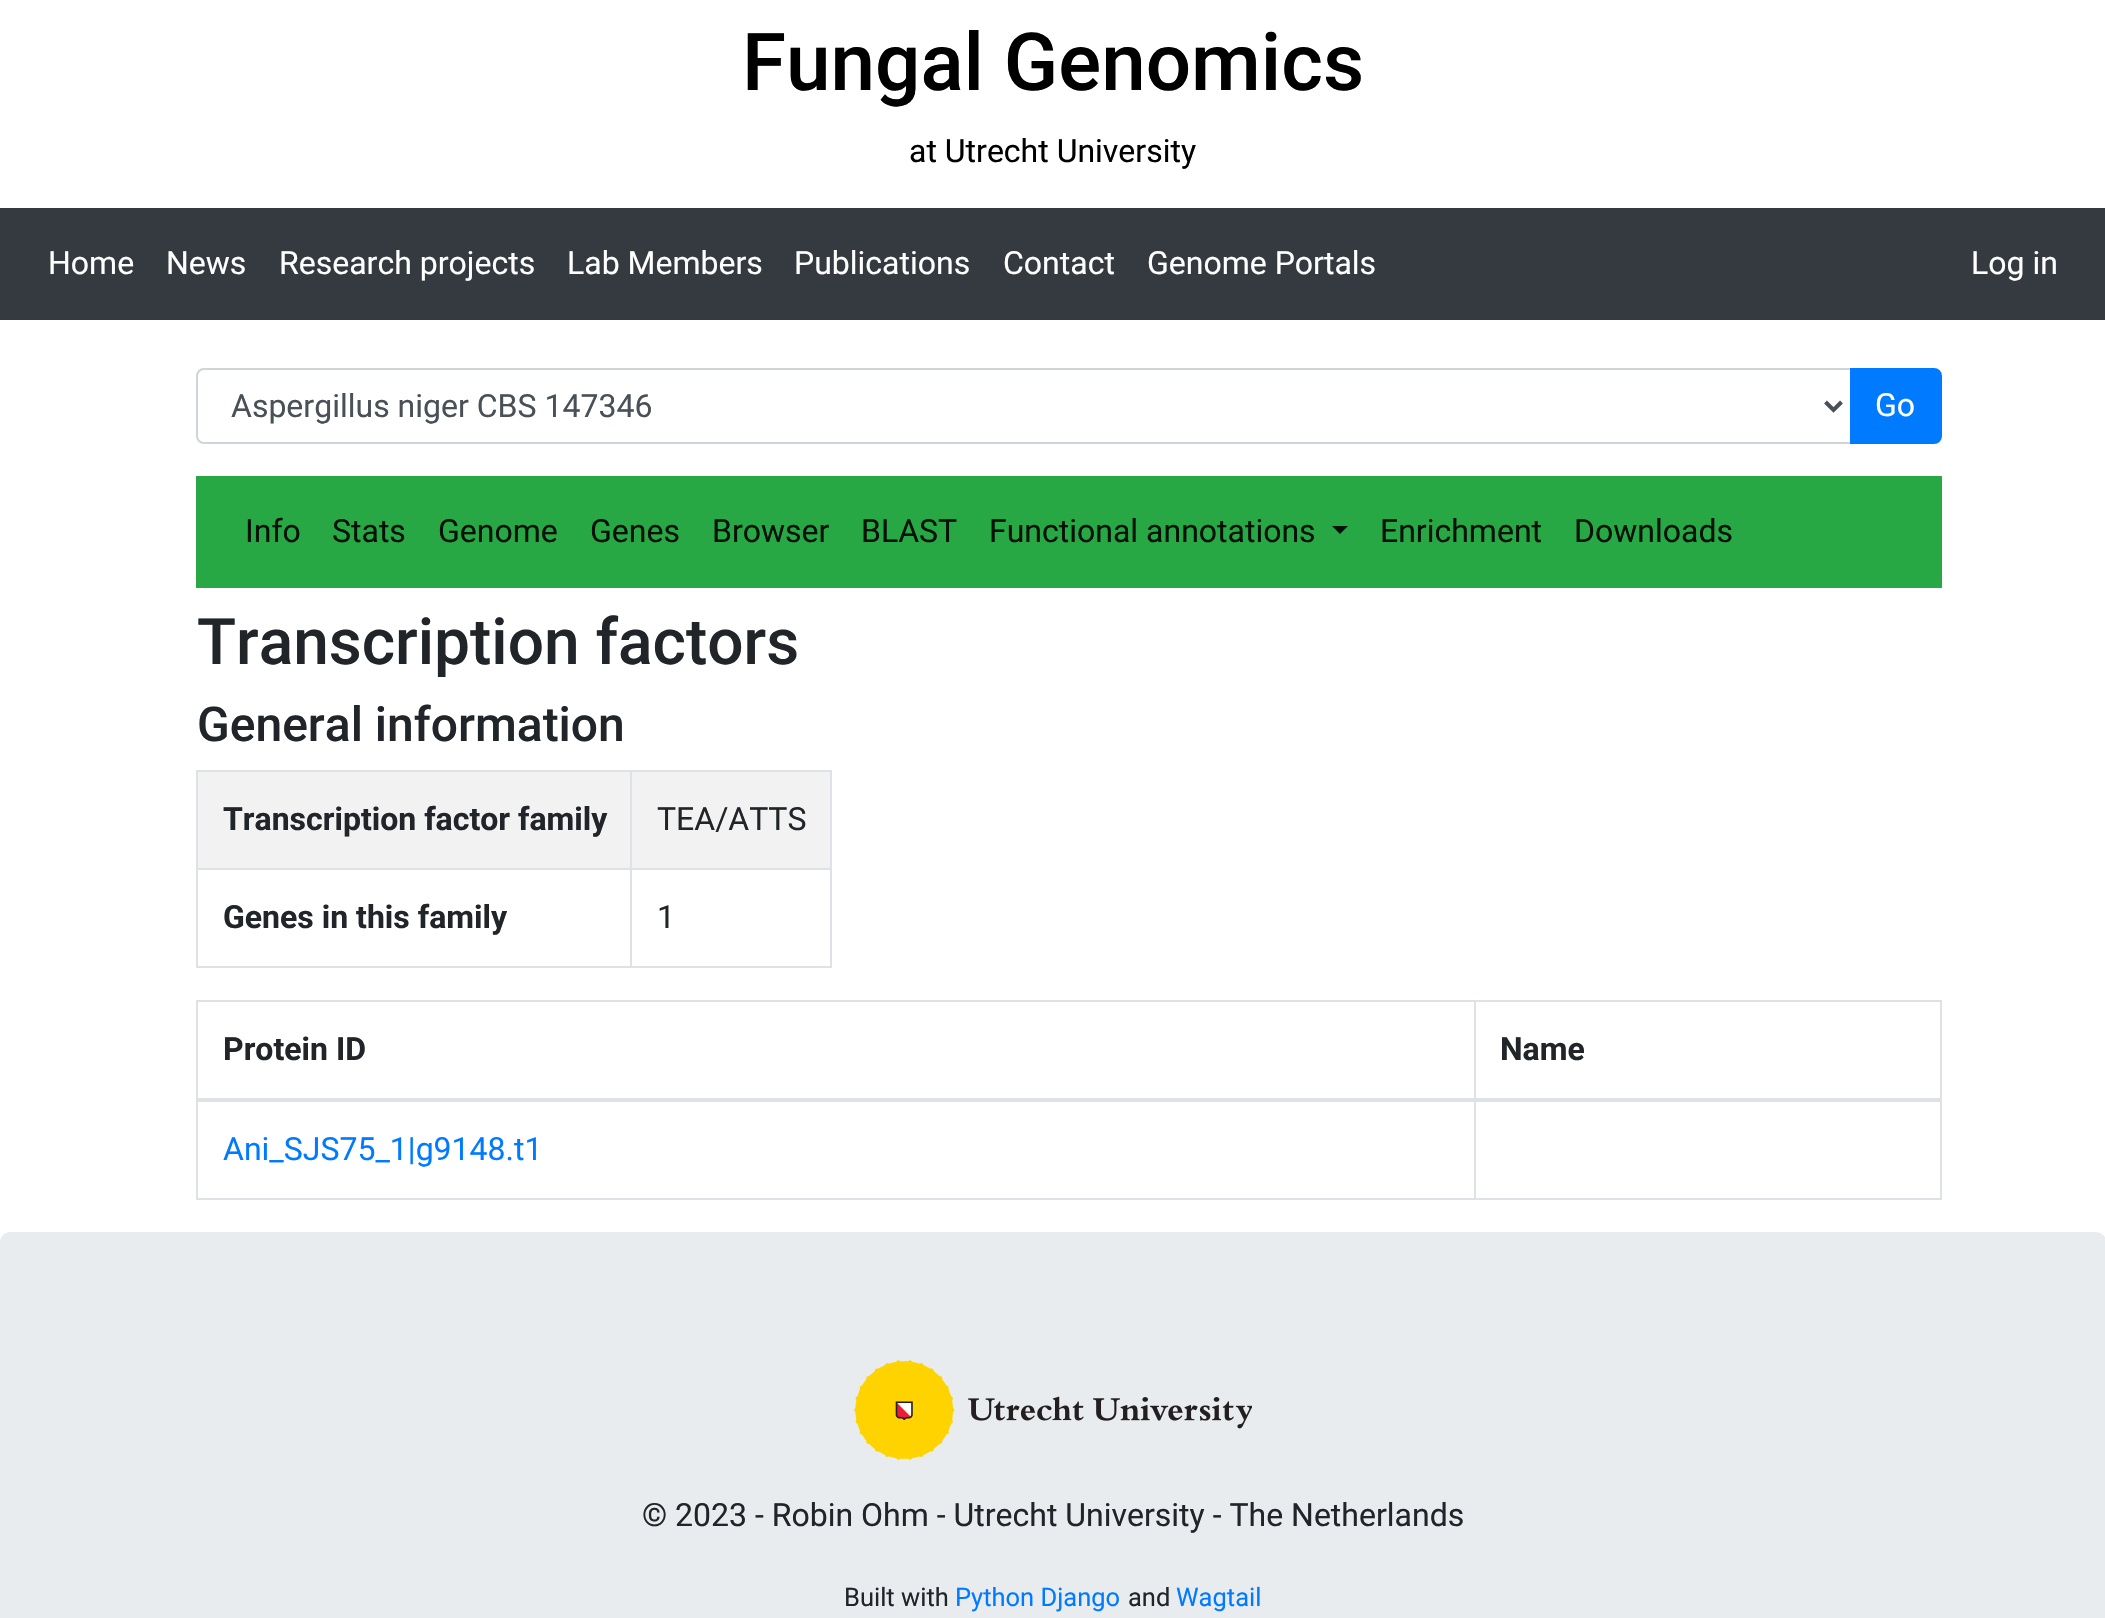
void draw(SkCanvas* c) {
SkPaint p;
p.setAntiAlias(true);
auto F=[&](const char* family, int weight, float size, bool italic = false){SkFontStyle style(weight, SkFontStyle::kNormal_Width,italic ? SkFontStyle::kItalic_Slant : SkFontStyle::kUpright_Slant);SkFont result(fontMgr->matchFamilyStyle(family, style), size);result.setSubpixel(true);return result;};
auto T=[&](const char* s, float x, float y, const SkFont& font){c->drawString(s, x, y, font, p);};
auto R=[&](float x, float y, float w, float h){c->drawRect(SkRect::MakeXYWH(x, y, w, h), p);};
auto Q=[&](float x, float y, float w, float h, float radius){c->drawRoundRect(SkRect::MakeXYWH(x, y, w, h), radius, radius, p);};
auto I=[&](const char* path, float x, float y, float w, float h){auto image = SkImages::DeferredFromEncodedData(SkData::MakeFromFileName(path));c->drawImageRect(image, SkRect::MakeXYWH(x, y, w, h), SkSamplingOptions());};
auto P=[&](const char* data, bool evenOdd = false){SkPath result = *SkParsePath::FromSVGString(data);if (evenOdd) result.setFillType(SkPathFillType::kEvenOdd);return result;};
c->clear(0xffffffff);
auto f1 = F("Roboto",500,80);
p.setColor(0xff000000);
T("Fungal Genomics",742,90,f1);
auto f2 = F("Roboto",400,32);
T("at Utrecht University",909,162,f2);
p.setColor(0xff343a40);
R(0,208,2105,112);
p.setColor(0xffffffff);
T("Home",48,274,f2);
T("News",166,274,f2);
T("Research projects",279,274,f2);
T("Lab Members",567,274,f2);
T("Publications",794,274,f2);
T("Contact",1003,274,f2);
T("Genome Portals",1147,274,f2);
T("Log in",1971,274,f2);
p.setStroke(true);
p.setStrokeWidth(2);
p.setColor(0xffced4da);
c->drawPath(P("M204 369h1647v74h-1647c-4 0-7-3-7-7v-60c0-4 3-7 7-7z"),p);
p.setStrokeWidth(4);
p.setColor(0xff495057);
c->drawPath(P("M1825.5 402l8 8l8-8"),p);
p.setStroke(false);
T("Aspergillus niger CBS 147346",231,417,f2);
p.setColor(0xff007bff);
c->drawPath(P("M1851 369h83c4 0 7 3 7 7v60c0 4-3 7-7 7h-83z"),p);
p.setStroke(true);
p.setStrokeWidth(2);
c->drawPath(P("M1851 369h83c4 0 7 3 7 7v60c0 4-3 7-7 7h-83z"),p);
p.setStroke(false);
p.setColor(0xffffffff);
T("Go",1875,416,f2);
p.setColor(0xff28a745);
R(196,476,1746,112);
p.setColor(0xff041107);
T("Info",245,542,f2);
T("Stats",332,542,f2);
T("Genome",438,542,f2);
T("Genes",590,542,f2);
T("Browser",712,542,f2);
T("BLAST",861,542,f2);
T("Functional annotations",989,542,f2);
c->drawPath(P("M1332 526h16l-8 8z"),p);
T("Enrichment",1380,542,f2);
T("Downloads",1574,542,f2);
auto f3 = F("Roboto",500,64);
p.setColor(0xff212529);
T("Transcription factors",197,664,f3);
auto f4 = F("Roboto",500,48);
T("General information",197,741,f4);
p.setColor(0xffdee2e6);
R(196,770,636,2);
R(830,770,2,198);
R(196,966,636,2);
R(196,770,2,198);
p.setColor(0xfff2f2f2);
R(198,772,632,96);
auto f5 = F("Roboto",700,32);
p.setColor(0xff212529);
T("Transcription factor family",223,830,f5);
p.setColor(0xffdee2e6);
R(630,868,202,2);
R(630,868,2,100);
R(196,868,436,2);
R(630,770,2,100);
p.setColor(0xff212529);
T("TEA/ATTS",657,830,f2);
T("Genes in this family",223,928,f5);
T("1",657,928,f2);
p.setColor(0xffdee2e6);
R(196,1000,1746,2);
R(1940,1000,2,200);
R(196,1198,1746,2);
R(196,1000,2,200);
p.setColor(0xff212529);
T("Protein ID",223,1060,f5);
p.setColor(0xffdee2e6);
R(1474,1000,2,200);
R(196,1098,1746,4);
p.setColor(0xff212529);
T("Name",1500,1060,f5);
p.setColor(0xff007bff);
T("Ani_SJS75_1|g9148.t1",223,1160,f2);
p.setColor(0xffe9ecef);
Q(0,1232,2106,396,10);
I("1.png",854,1360,398,100);
p.setColor(0xff212529);
T("© 2023 - Robin Ohm - Utrecht University - The Netherlands",642,1526,f2);
auto f6 = F("Roboto",400,25.5);
T("Built with",844,1606,f6);
p.setColor(0xff007bff);
T("Python Django",955,1606,f6);
p.setColor(0xff212529);
T("and",1128,1606,f6);
p.setColor(0xff007bff);
T("Wagtail",1176,1606,f6);
}
